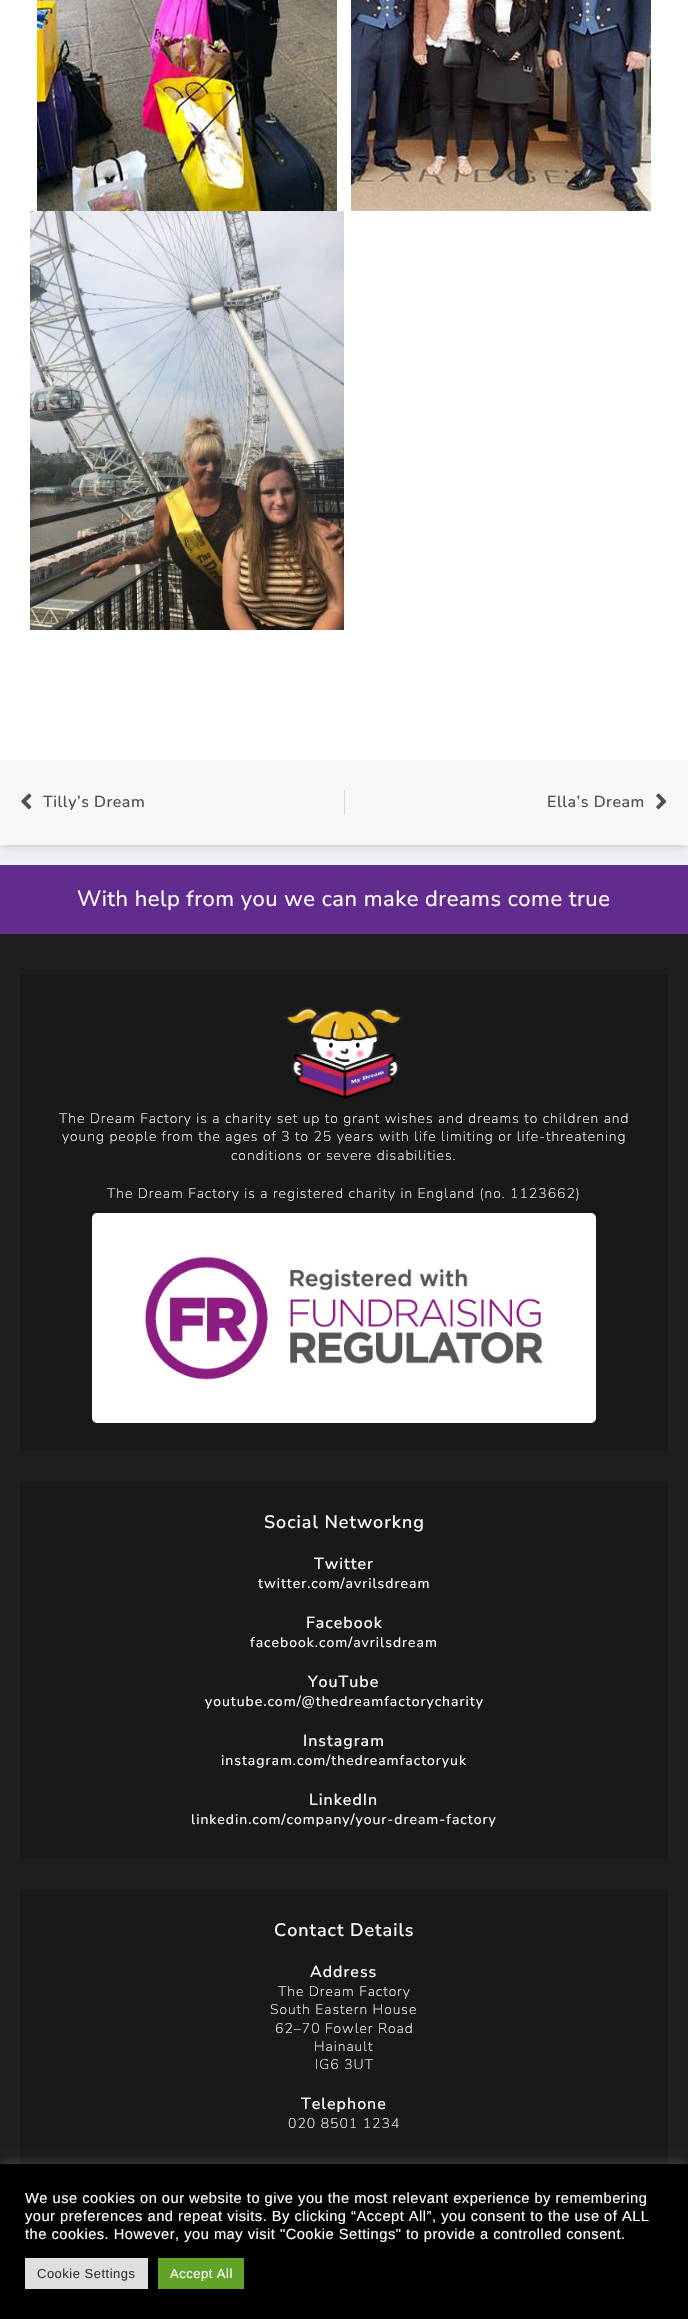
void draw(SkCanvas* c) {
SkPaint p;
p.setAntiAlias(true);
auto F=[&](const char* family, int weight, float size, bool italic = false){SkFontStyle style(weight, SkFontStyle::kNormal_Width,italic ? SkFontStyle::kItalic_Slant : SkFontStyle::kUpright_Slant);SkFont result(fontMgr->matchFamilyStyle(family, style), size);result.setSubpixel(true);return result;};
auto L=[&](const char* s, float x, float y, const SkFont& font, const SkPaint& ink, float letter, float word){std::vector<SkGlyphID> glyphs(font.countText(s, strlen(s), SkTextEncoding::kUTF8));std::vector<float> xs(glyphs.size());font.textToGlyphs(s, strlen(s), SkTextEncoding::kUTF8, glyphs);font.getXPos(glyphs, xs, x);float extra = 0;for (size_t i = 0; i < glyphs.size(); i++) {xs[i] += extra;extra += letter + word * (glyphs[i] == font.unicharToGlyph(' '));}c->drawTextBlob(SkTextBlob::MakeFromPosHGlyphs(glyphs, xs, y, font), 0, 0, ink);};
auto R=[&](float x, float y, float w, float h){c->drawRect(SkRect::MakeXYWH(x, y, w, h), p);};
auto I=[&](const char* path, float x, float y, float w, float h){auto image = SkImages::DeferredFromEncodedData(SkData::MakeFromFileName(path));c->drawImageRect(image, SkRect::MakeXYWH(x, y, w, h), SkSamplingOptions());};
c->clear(0xfff0f1f5);
p.setColor(0x33000000);
p.setMaskFilter(SkMaskFilter::MakeBlur(kNormal_SkBlurStyle, 5));
c->drawRect(SkRect::MakeXYWH(0,-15,688,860),p);
p.setMaskFilter(nullptr);
p.setColor(0xffffffff);
R(0,0,688,760);
I("1.png",37,0,300,211);
I("2.png",351,0,300,211);
I("3.png",30,211,314,419);
p.setColor(0xfff8f8fa);
R(0,760,688,85);
I("4.png",21,793,11,17);
auto f1 = F("Nunito Sans",500,16);
p.setColor(0xff505050);
L("Tilly’s Dream",43,807,f1,p,.5,0);
p.setColor(0xffd5d8dc);
R(344,790,1,25);
p.setColor(0xff505050);
L("Ella’s Dream",547,807,f1,p,.5,0);
I("5.png",656,793,11,17);
p.setColor(0xff622c8e);
R(0,865,688,69);
auto f2 = F("Nunito Sans",400,22);
p.setColor(0xffffffff);
L("With help from you we can make dreams come true",77,906,f2,p,.5,0);
p.setColor(0xff1e1e1e);
R(0,934,688,1230);
p.setColor(0xff191919);
R(20,974,648,477);
I("6.png",284,1007,119,92);
auto f3 = F("Nunito Sans",200,14);
p.setColor(0xffffffff);
L("The Dream Factory is a charity set up to grant wishes and dreams to children and",59,1123,f3,p,1,0);
L("young people from the ages of 3 to 25 years with life limiting or life-threatening",62,1141,f3,p,1,0);
L("conditions or severe disabilities.",231,1160,f3,p,1,0);
L("The Dream Factory is a registered charity in England (no. 1123662)",107,1198,f3,p,1,0);
I("7.png",92,1213,504,210);
p.setColor(0xff191919);
R(20,1481,648,378);
auto f4 = F("Nunito Sans",500,18);
p.setColor(0xffffffff);
L("Social Networkng",264,1528,f4,p,1,0);
L("Twitter",314,1569,f1,p,1,0);
auto f5 = F("Nunito Sans",400,14);
L("twitter.com/avrilsdream",258,1588,f5,p,1,0);
L("Facebook",306,1628,f1,p,1,0);
L("facebook.com/avrilsdream",250,1647,f5,p,1,0);
L("YouTube",308,1687,f1,p,1,0);
L("youtube.com/@thedreamfactorycharity",205,1706,f5,p,1,0);
L("Instagram",303,1746,f1,p,1,0);
L("instagram.com/thedreamfactoryuk",221,1765,f5,p,1,0);
L("LinkedIn",309,1805,f1,p,1,0);
L("linkedin.com/company/your-dream-factory",191,1824,f5,p,1,0);
p.setColor(0xff191919);
R(20,1889,648,275);
p.setColor(0xffffffff);
L("Contact Details",274,1936,f4,p,1,0);
L("Address",310,1977,f1,p,1,0);
L("The Dream Factory",278,1996,f3,p,1,0);
L("South Eastern House",270,2014,f3,p,1,0);
L("62–70 Fowler Road",275,2033,f3,p,1,0);
L("Hainault",314,2051,f3,p,1,0);
L("IG6 3UT",315,2069,f3,p,1,0);
L("Telephone",301,2109,f1,p,1,0);
L("020 8501 1234",288,2128,f3,p,1,0);
p.setColor(0x4dacabab);
p.setMaskFilter(SkMaskFilter::MakeBlur(kNormal_SkBlurStyle, 5));
c->drawRect(SkRect::MakeXYWH(0,2163,688,155),p);
p.setMaskFilter(nullptr);
p.setColor(0xff000000);
R(0,2164,688,155);
auto f6 = F("Liberation Sans",400,14.65);
p.setColor(0xffffffff);
L("We use cookies on our website to give you the most relevant experience by remembering",25,2203,f6,p,.5,0);
L("your preferences and repeat visits. By clicking “Accept All”, you consent to the use of ALL",25,2221,f6,p,.5,0);
L("the cookies. However, you may visit \"Cookie Settings\" to provide a controlled consent.",25,2239,f6,p,.5,0);
p.setColor(0xffdedfe0);
R(25,2258,123,31);
auto f7 = F("Liberation Sans",400,13);
p.setColor(0xff333333);
L("Cookie Settings",37,2278,f7,p,.5,0);
p.setColor(0xff61a229);
R(158,2258,86,31);
p.setColor(0xffffffff);
L("Accept All",170,2278,f7,p,.5,0);
}
